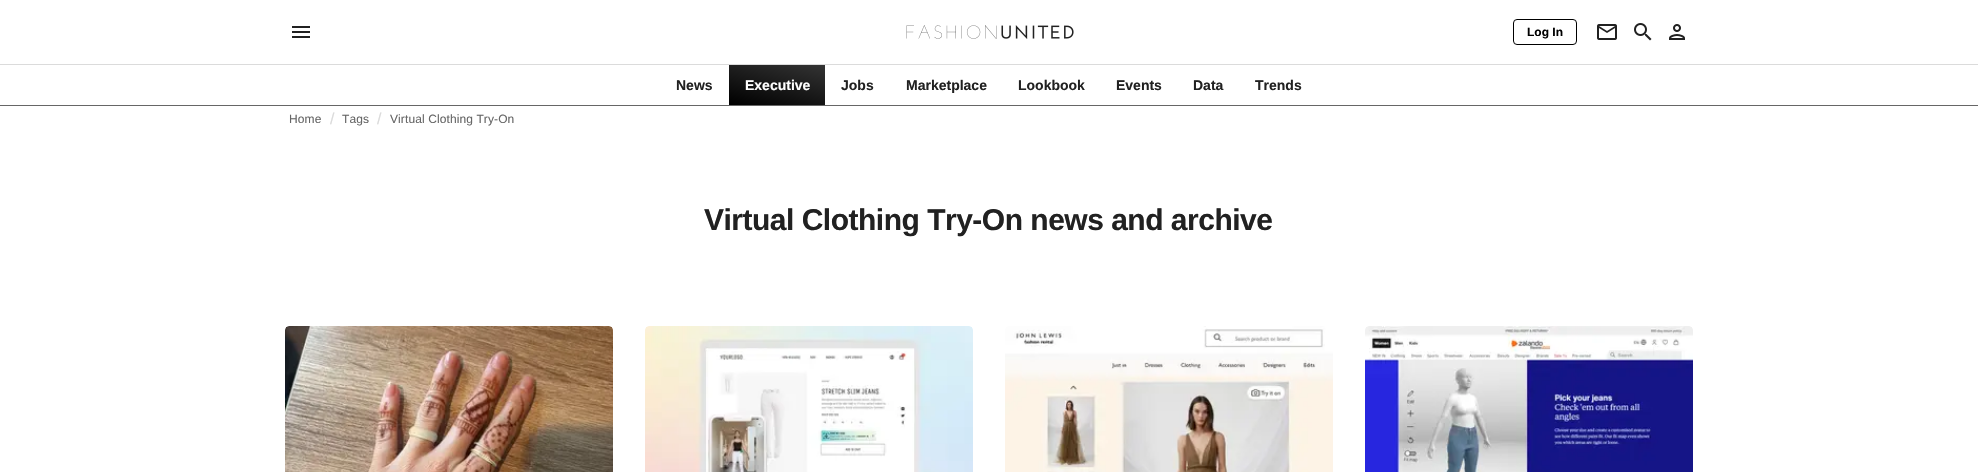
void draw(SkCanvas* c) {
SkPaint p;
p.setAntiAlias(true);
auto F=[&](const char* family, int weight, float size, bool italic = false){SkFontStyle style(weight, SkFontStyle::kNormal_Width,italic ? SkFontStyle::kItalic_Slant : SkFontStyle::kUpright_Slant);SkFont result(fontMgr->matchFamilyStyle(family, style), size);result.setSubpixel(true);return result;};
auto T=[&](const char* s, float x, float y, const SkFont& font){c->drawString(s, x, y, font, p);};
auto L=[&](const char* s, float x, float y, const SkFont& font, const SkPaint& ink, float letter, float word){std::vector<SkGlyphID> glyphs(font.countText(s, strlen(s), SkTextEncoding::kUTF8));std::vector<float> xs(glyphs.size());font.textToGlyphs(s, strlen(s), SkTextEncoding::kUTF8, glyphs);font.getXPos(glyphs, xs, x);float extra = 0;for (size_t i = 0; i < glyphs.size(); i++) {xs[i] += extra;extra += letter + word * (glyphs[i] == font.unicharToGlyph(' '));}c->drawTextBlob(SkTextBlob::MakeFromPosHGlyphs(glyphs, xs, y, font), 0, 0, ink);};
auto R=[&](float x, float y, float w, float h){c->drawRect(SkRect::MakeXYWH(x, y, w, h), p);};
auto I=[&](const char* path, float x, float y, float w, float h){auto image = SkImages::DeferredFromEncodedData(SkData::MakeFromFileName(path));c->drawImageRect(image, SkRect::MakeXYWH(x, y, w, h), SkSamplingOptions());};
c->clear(0xffffffff);
p.setColor(0xffdbdbdb);
R(0,64,1978,1);
I("1.png",292,26,18,12);
I("2.png",906,25,168,14);
p.setStroke(true);
p.setStrokeWidth(1);
p.setColor(0xff000000);
c->drawRoundRect(SkRect::MakeXYWH(1513.5,19.5,63,25),3.5,3.5,p);
auto f1 = F("Liberation Sans",700,12);
p.setStroke(false);
T("Log In",1527,36,f1);
I("3.png",1597,24,20,16);
I("4.png",1634,23,18,18);
I("5.png",1669,24,16,16);
p.setColor(0xff666666);
R(0,105,1978,1);
auto f2 = F("Liberation Sans",700,14);
p.setColor(0xff212121);
T("News",676,90,f2);
{
const SkColor colors[] = {0xff000000,0xff333333};
const float stops[] = {0,1};
const SkPoint ends[] = {{769,115}, {785,55}};
p.setShader(SkGradientShader::MakeLinear(ends, colors, stops, 2, SkTileMode::kClamp));
p.setAlpha(255);
}
R(729,65,96,40);
p.setShader(nullptr);
p.setColor(0xffffffff);
T("Executive",745,90,f2);
p.setColor(0xff212121);
T("Jobs",841,90,f2);
T("Marketplace",906,90,f2);
T("Lookbook",1018,90,f2);
T("Events",1116,90,f2);
T("Data",1193,90,f2);
T("Trends",1255,90,f2);
auto f3 = F("Liberation Sans",400,12);
p.setColor(0xff666666);
L("Home",289,123,f3,p,.1,0);
auto f4 = F("Liberation Sans",400,16);
p.setColor(0xffdbdbdb);
T("/",330,124,f4);
p.setColor(0xff666666);
L("Tags",342,123,f3,p,.1,0);
p.setColor(0xffdbdbdb);
T("/",377,124,f4);
p.setColor(0xff666666);
L("Virtual Clothing Try-On",390,123,f3,p,.1,0);
auto f5 = F("Liberation Sans",700,30);
p.setColor(0xff212121);
L("Virtual Clothing Try-On news and archive",704,230,f5,p,-.5,0);
I("6.png",285,326,328,146);
I("7.png",645,326,328,146);
I("8.png",1005,326,328,146);
I("9.png",1365,326,328,146);
}
